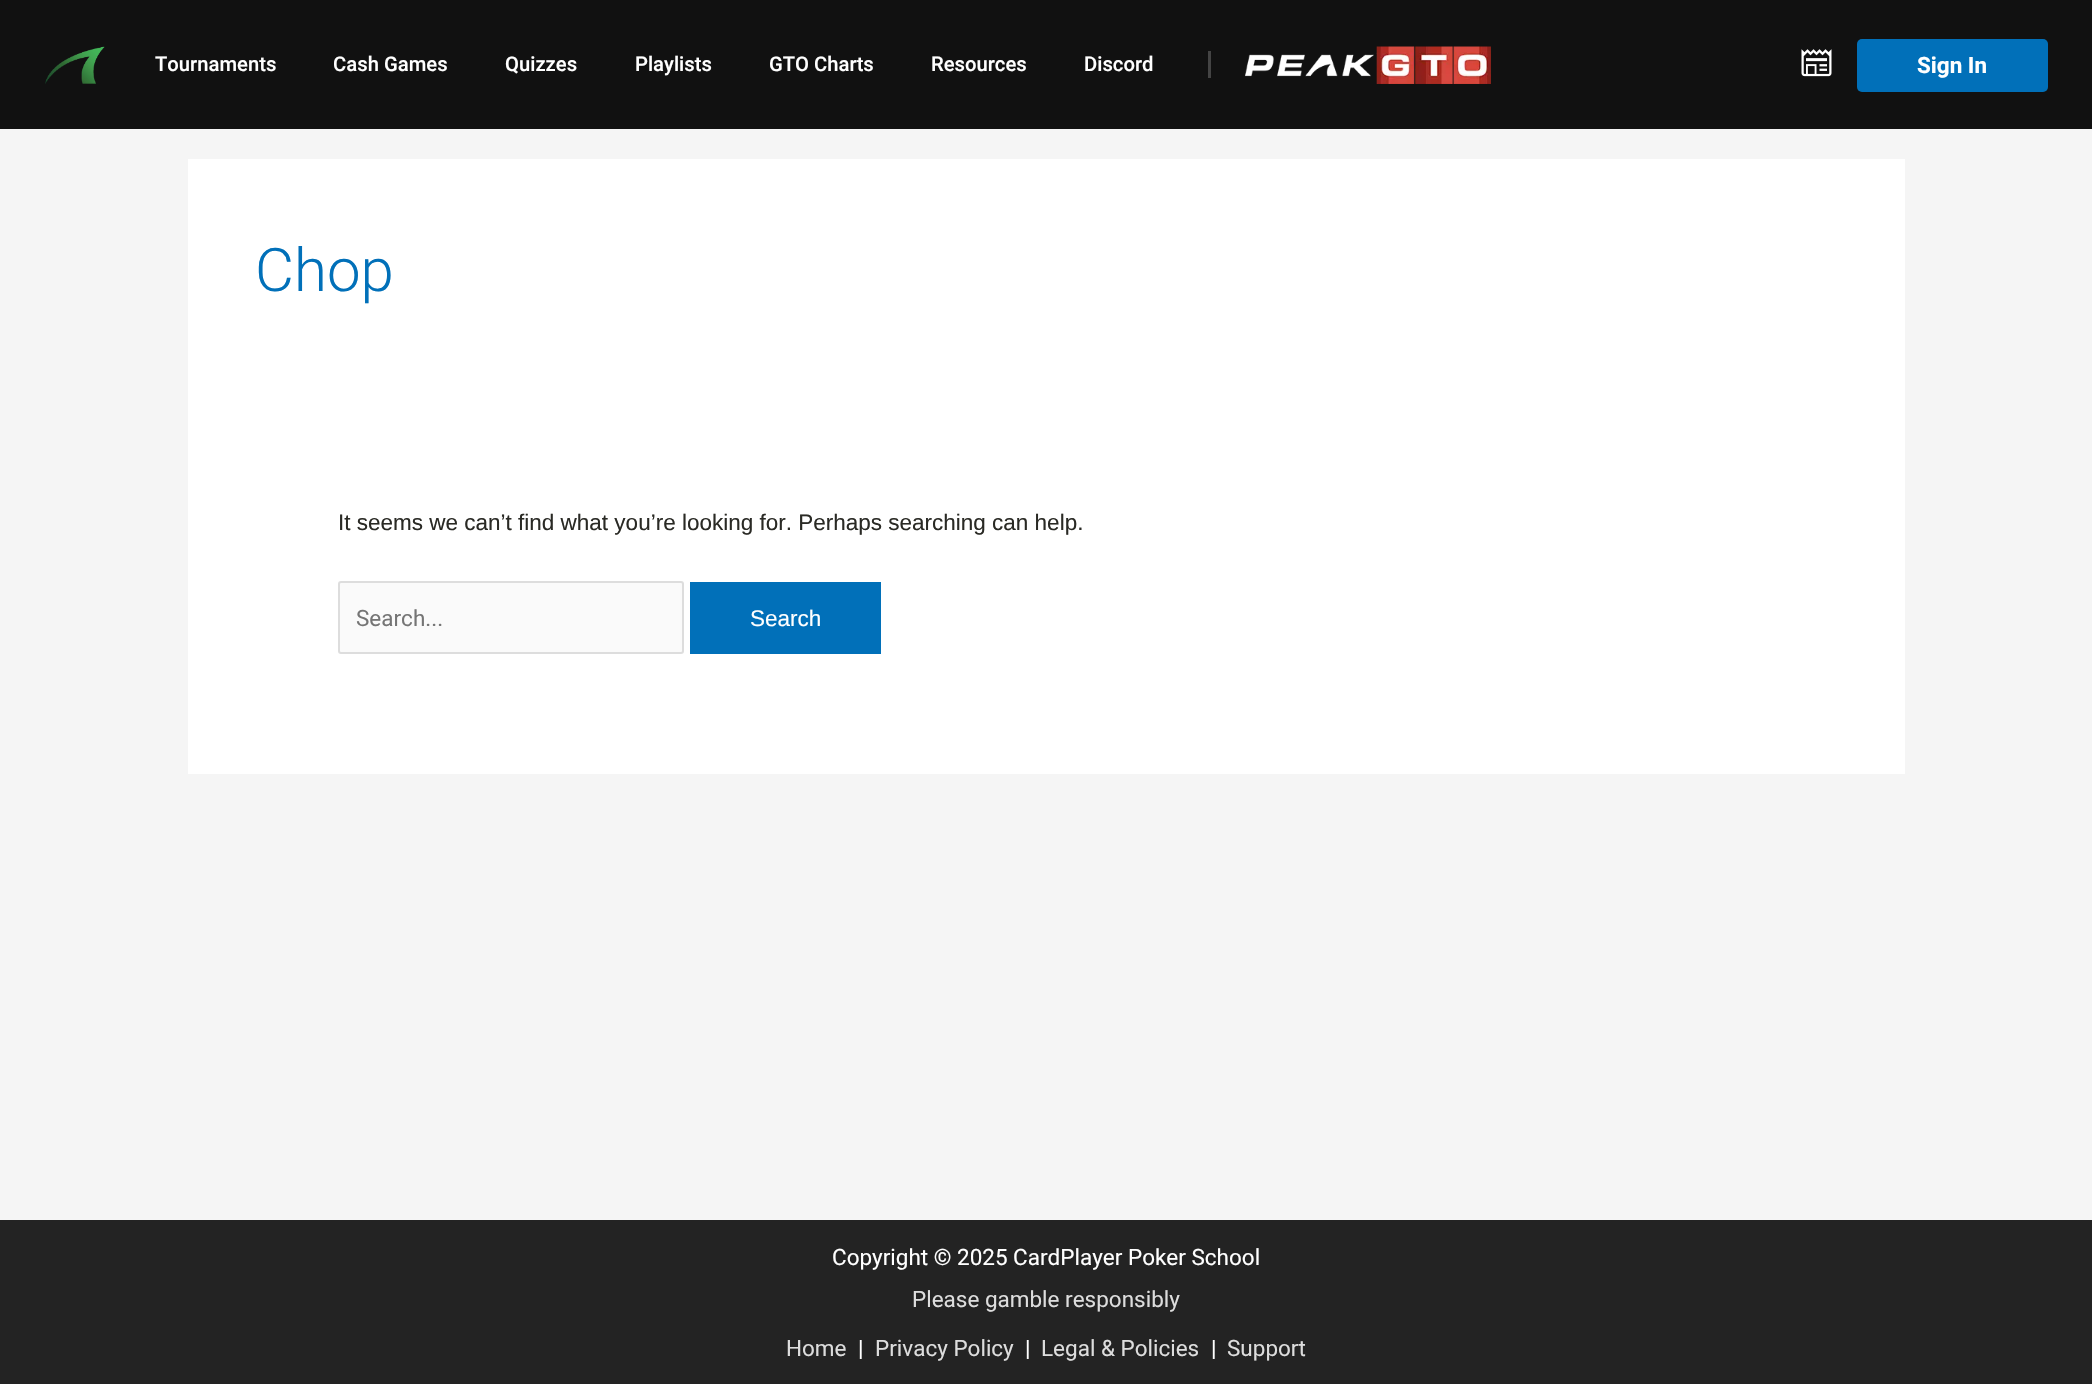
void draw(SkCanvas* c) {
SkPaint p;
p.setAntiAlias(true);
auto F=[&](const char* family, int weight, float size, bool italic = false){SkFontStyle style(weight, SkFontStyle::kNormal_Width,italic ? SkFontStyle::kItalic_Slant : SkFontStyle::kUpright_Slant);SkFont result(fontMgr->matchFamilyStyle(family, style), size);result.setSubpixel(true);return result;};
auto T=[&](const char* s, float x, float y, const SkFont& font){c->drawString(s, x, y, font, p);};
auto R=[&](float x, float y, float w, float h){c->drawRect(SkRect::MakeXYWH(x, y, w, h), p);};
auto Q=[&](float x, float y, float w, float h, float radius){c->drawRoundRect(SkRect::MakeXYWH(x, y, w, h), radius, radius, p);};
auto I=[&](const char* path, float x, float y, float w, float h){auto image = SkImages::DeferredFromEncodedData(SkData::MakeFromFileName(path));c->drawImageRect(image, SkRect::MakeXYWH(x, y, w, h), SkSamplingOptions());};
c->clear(0xfff5f5f5);
p.setColor(0xff111111);
R(0,0,2092,129);
I("1.png",45,46,60,38);
auto f1 = F("Roboto",500,20.25);
p.setColor(0xffffffff);
T("Tournaments",155,71,f1);
T("Cash Games",333,71,f1);
T("Quizzes",505,71,f1);
T("Playlists",635,71,f1);
T("GTO Charts",769,71,f1);
T("Resources",931,71,f1);
T("Discord",1084,71,f1);
p.setColor(0xff444444);
R(1208,51,3,27);
I("2.png",1245,46,246,38);
I("3.png",1801,49,31,28);
p.setColor(0xff0170b9);
Q(1857,39,191,53,5);
auto f2 = F("Roboto",700,22.5);
p.setColor(0xffffffff);
T("Sign In",1917,73,f2);
R(188,159,1717,615);
auto f3 = F("Roboto",300,60);
p.setColor(0xff0170b9);
T("Chop",255,291,f3);
auto f4 = F("Liberation Sans",400,22.5);
p.setColor(0xff2a2a25);
T("It seems we can’t find what you’re looking for. Perhaps searching can help.",338,530,f4);
p.setColor(0xfffafafa);
c->drawRoundRect(SkRect::MakeXYWH(339,582,344,71),2,2,p);
p.setStroke(true);
p.setStrokeWidth(2);
p.setColor(0xffdddddd);
c->drawRoundRect(SkRect::MakeXYWH(339,582,344,71),2,2,p);
auto f5 = F("Roboto",400,22.5);
p.setStroke(false);
p.setColor(0xff757575);
T("Search...",356,626,f5);
p.setColor(0xff0170b9);
R(690,582,191,72);
p.setColor(0xffffffff);
T("Search",750,626,f4);
p.setColor(0xff232323);
R(0,1220,2092,164);
p.setColor(0xffffffff);
T("Copyright © 2025 CardPlayer Poker School",832,1265,f5);
p.setColor(0xffdddddd);
T("Please gamble responsibly",912,1307,f5);
T("Home",786,1356,f5);
p.setColor(0xffffffff);
T("|",858,1356,f5);
p.setColor(0xffdddddd);
T("Privacy Policy",875,1356,f5);
p.setColor(0xffffffff);
T("|",1025,1356,f5);
p.setColor(0xffdddddd);
T("Legal & Policies",1041,1356,f5);
p.setColor(0xffffffff);
T("|",1211,1356,f5);
p.setColor(0xffdddddd);
T("Support",1227,1356,f5);
}
